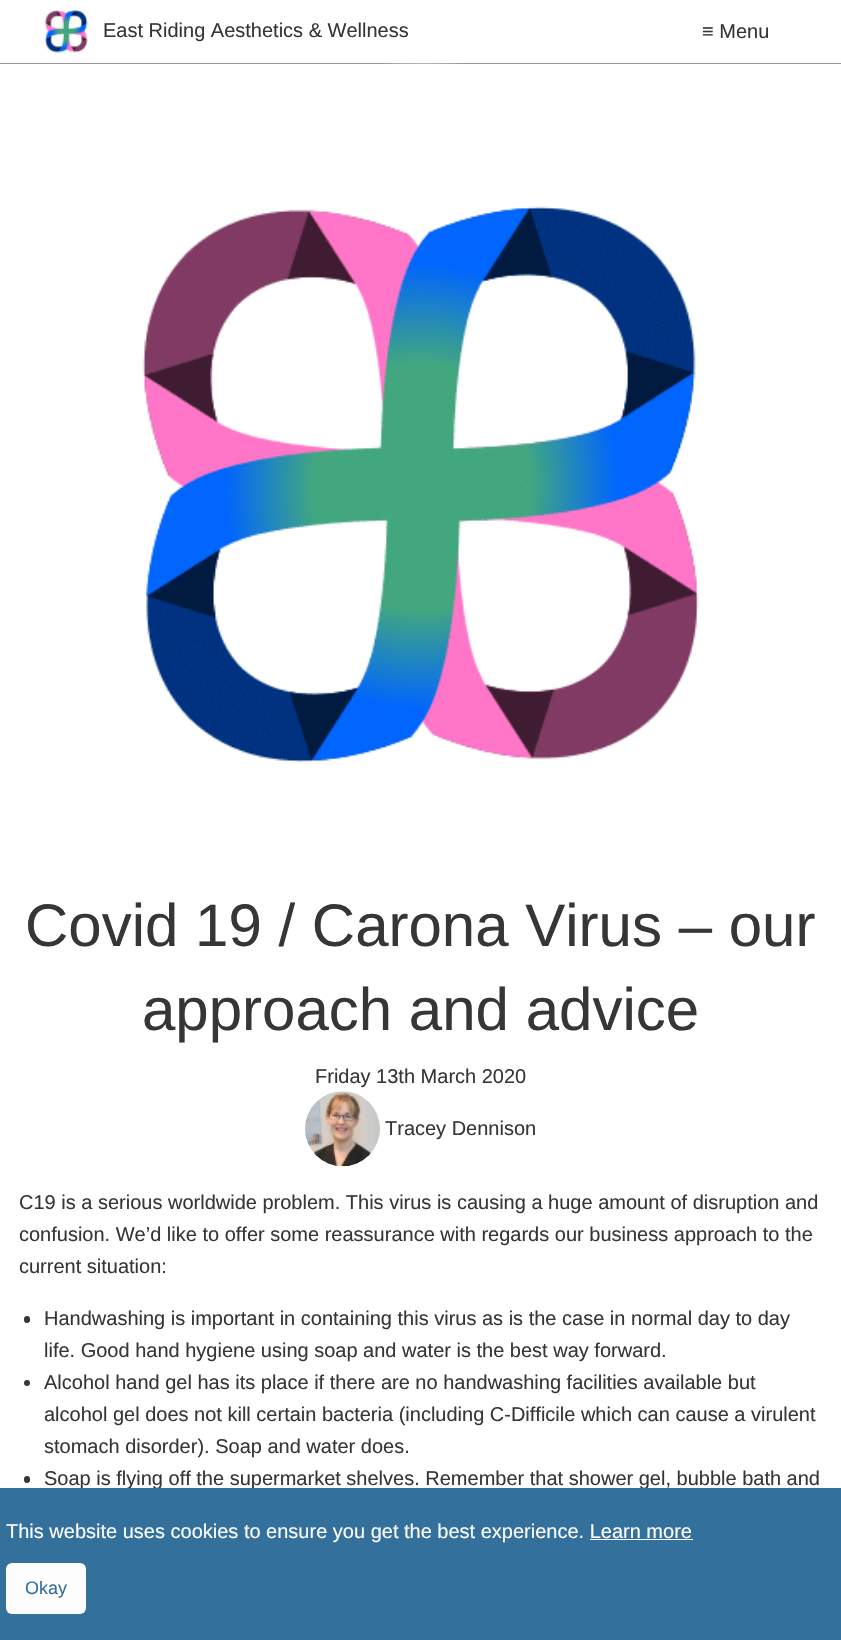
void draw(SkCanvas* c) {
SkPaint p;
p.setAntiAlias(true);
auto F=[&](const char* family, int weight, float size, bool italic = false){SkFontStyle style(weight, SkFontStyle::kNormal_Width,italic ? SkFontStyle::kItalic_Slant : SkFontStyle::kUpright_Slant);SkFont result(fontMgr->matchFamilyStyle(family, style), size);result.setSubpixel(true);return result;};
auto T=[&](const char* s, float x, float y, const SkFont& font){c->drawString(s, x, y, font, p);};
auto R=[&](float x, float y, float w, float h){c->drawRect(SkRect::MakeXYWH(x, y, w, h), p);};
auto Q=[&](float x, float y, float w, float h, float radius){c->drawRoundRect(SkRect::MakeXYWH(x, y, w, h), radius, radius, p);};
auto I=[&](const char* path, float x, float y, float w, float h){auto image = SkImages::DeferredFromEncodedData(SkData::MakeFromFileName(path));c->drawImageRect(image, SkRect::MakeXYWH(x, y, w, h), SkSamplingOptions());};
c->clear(0xffffffff);
p.setColor(0xff9a9a9c);
R(0,63,841,1);
I("1.png",44,9,44,44);
auto f1 = F("Liberation Sans",400,20);
p.setColor(0xff363636);
T("East Riding Aesthetics & Wellness",103,37,f1);
T("≡ Menu",702,38,f1);
I("2.png",142,63,645,700);
auto f2 = F("Liberation Sans",400,60);
T("Covid 19 / Carona Virus – our",25,946,f2);
T("approach and advice",142,1030,f2);
T("Friday 13th March 2020",315,1083,f1);
I("3.png",305,1091,75,76);
T("Tracey Dennison",385,1135,f1);
T("C19 is a serious worldwide problem. This virus is causing a huge amount of disruption and",19,1209,f1);
T("confusion. We’d like to offer some reassurance with regards our business approach to the",19,1241,f1);
T("current situation:",19,1273,f1);
Q(24,1316,6,7,3);
T("Handwashing is important in containing this virus as is the case in normal day to day",44,1325,f1);
T("life. Good hand hygiene using soap and water is the best way forward.",44,1357,f1);
c->drawCircle(27,1383,3,p);
T("Alcohol hand gel has its place if there are no handwashing facilities available but",44,1389,f1);
T("alcohol gel does not kill certain bacteria (including C-Difficile which can cause a virulent",44,1421,f1);
T("stomach disorder). Soap and water does.",44,1453,f1);
Q(24,1476,6,7,3);
T("Soap is flying off the supermarket shelves. Remember that shower gel, bubble bath and",44,1485,f1);
p.setColor(0xff33709c);
R(0,1488,841,152);
p.setColor(0xfffdfdfd);
T("This website uses cookies to ensure you get the best experience. Learn more",6,1538,f1);
R(590,1539,103,1);
Q(6,1563,80,51,6);
auto f3 = F("Liberation Sans",400,18);
p.setColor(0xff33709c);
T("Okay",25,1594,f3);
}
